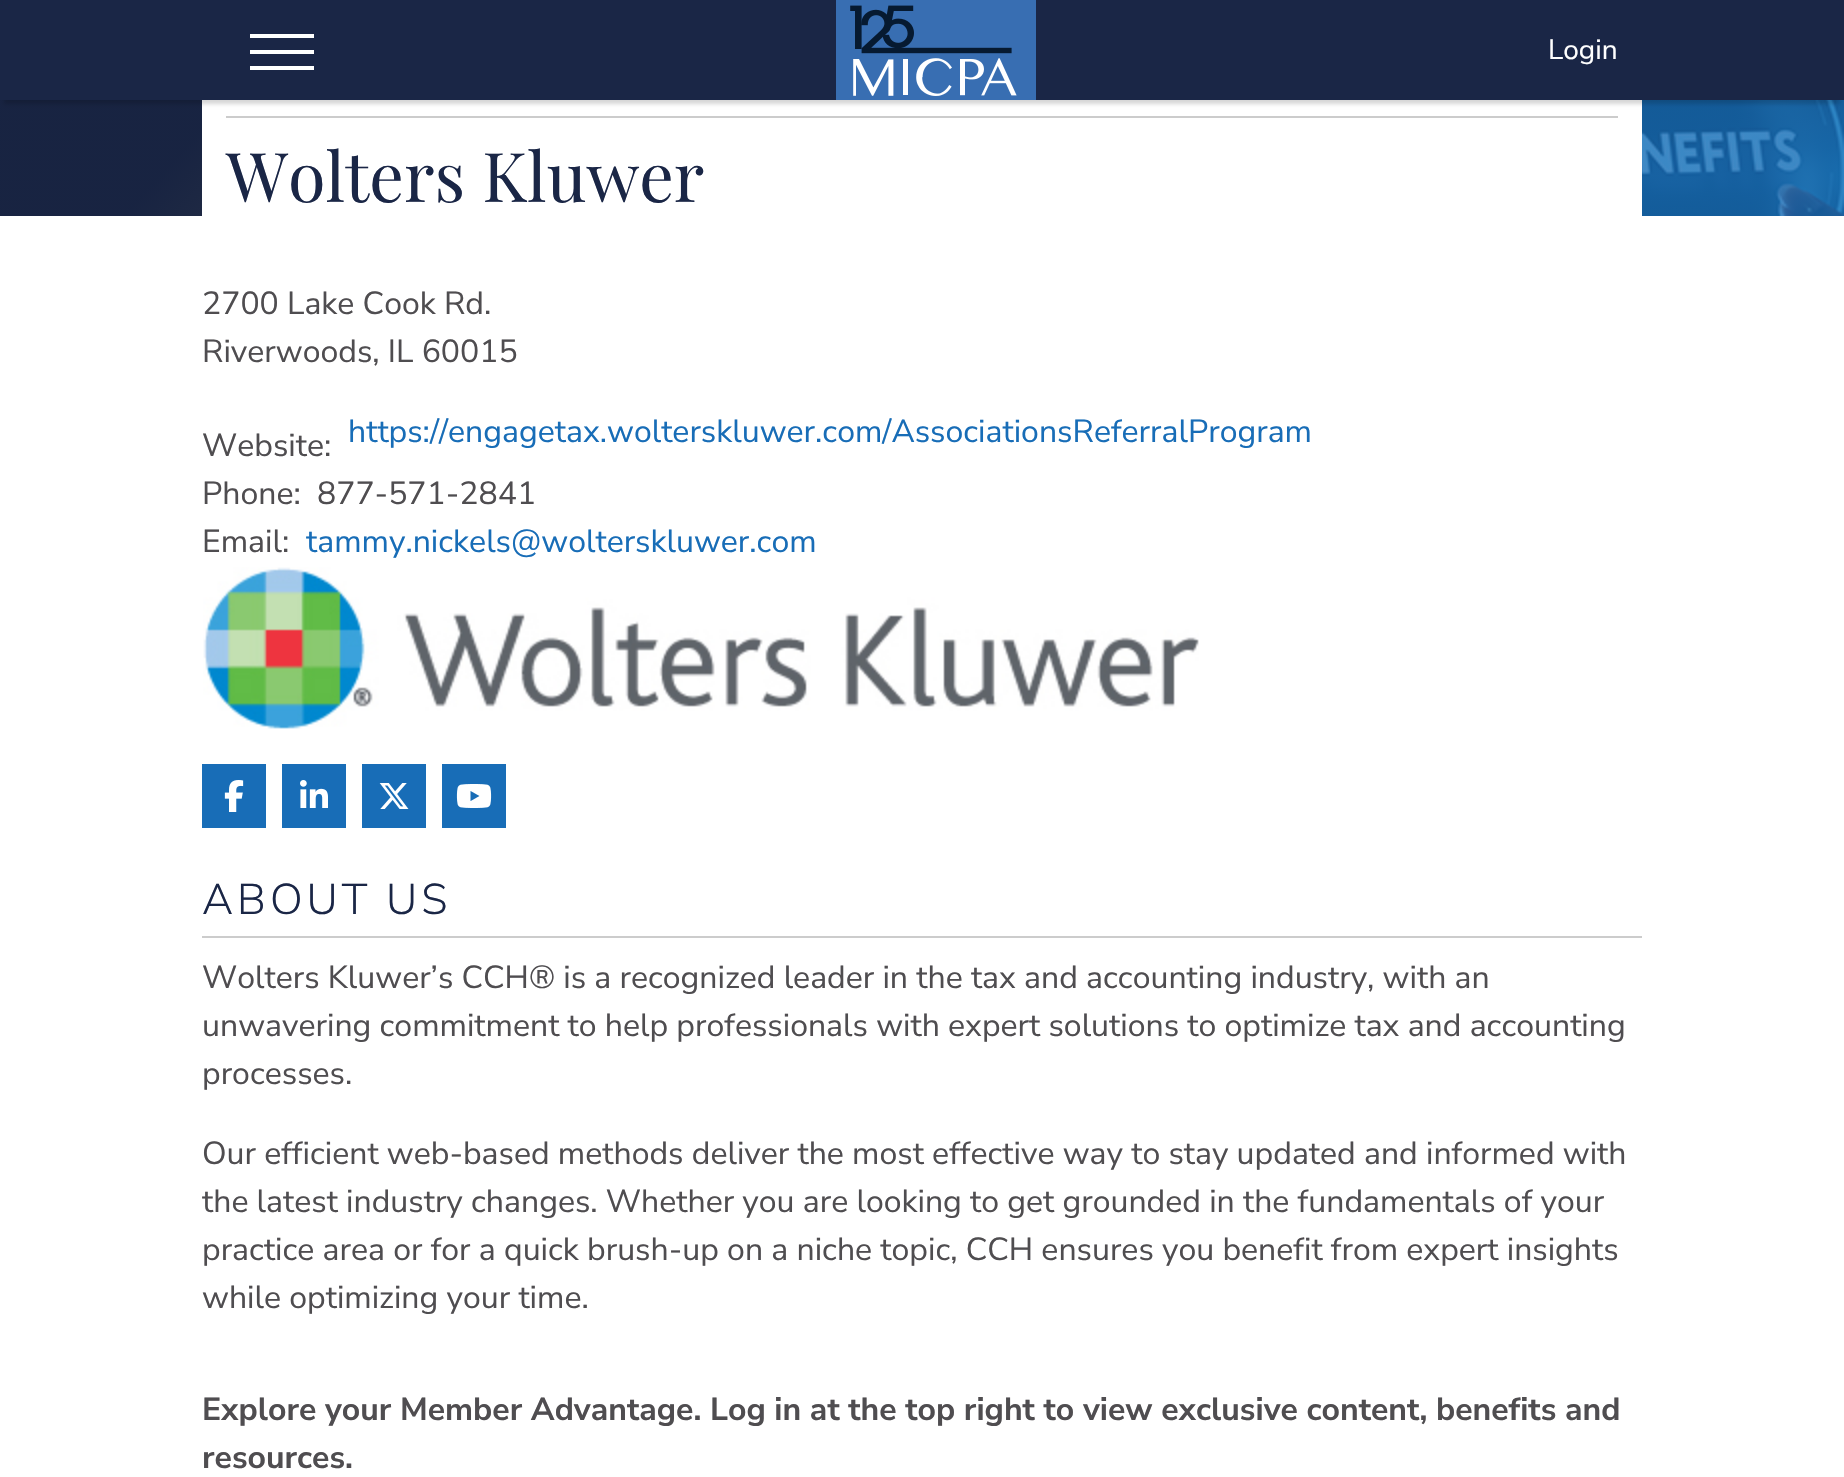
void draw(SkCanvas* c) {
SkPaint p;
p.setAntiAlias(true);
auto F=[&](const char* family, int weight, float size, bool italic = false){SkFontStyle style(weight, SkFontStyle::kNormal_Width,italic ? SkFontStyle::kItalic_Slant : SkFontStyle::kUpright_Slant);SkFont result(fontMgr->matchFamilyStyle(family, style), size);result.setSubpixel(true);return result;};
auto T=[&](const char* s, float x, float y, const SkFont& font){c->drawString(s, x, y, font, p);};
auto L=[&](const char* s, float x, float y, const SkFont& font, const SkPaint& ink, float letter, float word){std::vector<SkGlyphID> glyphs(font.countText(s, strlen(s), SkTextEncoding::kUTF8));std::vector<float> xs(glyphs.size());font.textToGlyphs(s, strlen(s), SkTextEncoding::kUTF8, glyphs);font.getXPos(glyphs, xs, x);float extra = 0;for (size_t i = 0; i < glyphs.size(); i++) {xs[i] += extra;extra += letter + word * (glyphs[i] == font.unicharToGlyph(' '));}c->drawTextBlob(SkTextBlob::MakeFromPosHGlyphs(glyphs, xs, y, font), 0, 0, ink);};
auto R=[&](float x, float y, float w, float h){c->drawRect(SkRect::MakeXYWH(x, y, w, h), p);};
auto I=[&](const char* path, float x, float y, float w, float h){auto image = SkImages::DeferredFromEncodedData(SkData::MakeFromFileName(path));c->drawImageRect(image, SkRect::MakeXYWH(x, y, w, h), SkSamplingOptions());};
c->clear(0xffffffff);
I("2.png",0,100,1844,116);
p.setColor(0xffffffff);
R(202,100,1440,116);
p.setColor(0x29000000);
p.setMaskFilter(SkMaskFilter::MakeBlur(kNormal_SkBlurStyle, 2));
c->drawRect(SkRect::MakeXYWH(4,12,1836,92),p);
p.setMaskFilter(nullptr);
p.setColor(0xff1a2646);
R(0,0,1844,100);
p.setColor(0xffffffff);
R(250,50,64,4);
R(250,34,64,4);
R(250,66,64,4);
I("1.png",836,0,200,100);
auto f1 = F("Nunito Sans",400,28);
T("Login",1548,59,f1);
p.setColor(0xffcccccc);
R(226,116,1392,2);
auto f2 = F("Playfair Display",400,68.5);
p.setColor(0xff1a2646);
T("Wolters Kluwer",226,202,f2);
auto f3 = F("Nunito Sans",400,32);
p.setColor(0xff4f4d50);
T("2700 Lake Cook Rd.",202,314,f3);
T("Riverwoods, IL 60015",202,362,f3);
T("Website:",202,456,f3);
p.setColor(0xff186db7);
T("https://engagetax.wolterskluwer.com/AssociationsReferralProgram",348,442,f3);
p.setColor(0xff4f4d50);
T("Phone:",202,504,f3);
T("877-571-2841",317,504,f3);
T("Email:",202,552,f3);
p.setColor(0xff186db7);
T("tammy.nickels@wolterskluwer.com",306,552,f3);
I("3.png",203,567,996,162);
R(202,764,64,64);
I("4.png",224,780,20,32);
R(282,764,64,64);
I("5.png",300,780,28,28);
R(362,764,64,64);
I("6.png",379,783,30,26);
R(442,764,64,64);
I("7.png",456,784,36,24);
p.setColor(0xffcccccc);
R(202,936,1440,2);
auto f4 = F("Nunito Sans",300,43);
p.setColor(0xff1a2646);
L("ABOUT US",202,914,f4,p,4,0);
p.setColor(0xff4f4d50);
T("Wolters Kluwer’s CCH® is a recognized leader in the tax and accounting industry, with an",202,988,f3);
T("unwavering commitment to help professionals with expert solutions to optimize tax and accounting",202,1036,f3);
T("processes.",202,1084,f3);
T("Our efficient web-based methods deliver the most effective way to stay updated and informed with",202,1164,f3);
T("the latest industry changes. Whether you are looking to get grounded in the fundamentals of your",202,1212,f3);
T("practice area or for a quick brush-up on a niche topic, CCH ensures you benefit from expert insights",202,1260,f3);
T("while optimizing your time.",202,1308,f3);
auto f5 = F("Nunito Sans",700,32);
T("Explore your Member Advantage. Log in at the top right to view exclusive content, benefits and",202,1420,f5);
T("resources.",202,1468,f5);
}
